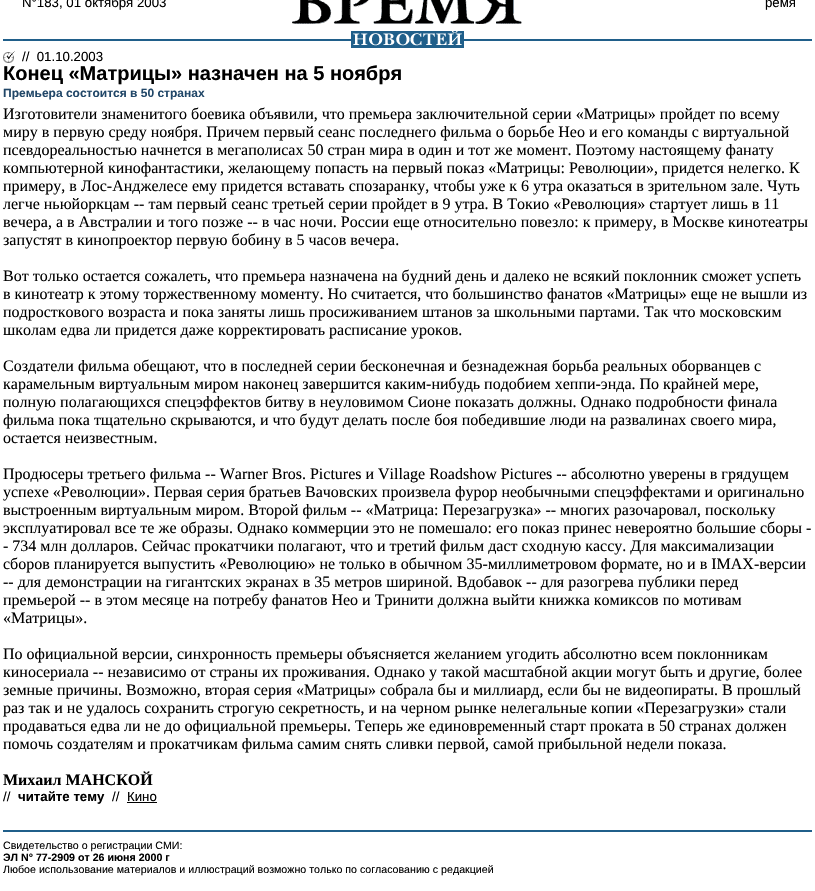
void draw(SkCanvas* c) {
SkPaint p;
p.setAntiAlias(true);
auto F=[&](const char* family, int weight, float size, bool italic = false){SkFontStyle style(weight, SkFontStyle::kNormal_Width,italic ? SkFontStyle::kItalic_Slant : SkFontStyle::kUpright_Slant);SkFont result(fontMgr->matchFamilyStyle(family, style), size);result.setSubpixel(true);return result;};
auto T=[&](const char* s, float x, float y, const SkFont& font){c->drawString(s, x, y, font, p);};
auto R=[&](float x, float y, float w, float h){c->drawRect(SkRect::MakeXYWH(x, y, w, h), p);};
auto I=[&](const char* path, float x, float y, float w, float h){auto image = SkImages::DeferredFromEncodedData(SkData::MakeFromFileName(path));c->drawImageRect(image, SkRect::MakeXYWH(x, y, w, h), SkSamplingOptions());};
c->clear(0xffffffff);
auto f1 = F("Liberation Sans",400,13.25);
p.setColor(0xff000000);
T("N°183, 01 октября 2003",22,7,f1);
I("1.png",292,0,230,24);
T("ремя",765,7,f1);
p.setColor(0xff205f8a);
R(3,39,809,2);
I("2.png",351,31,113,17);
I("3.png",3,51,12,12);
p.setColor(0xff000000);
T("//  01.10.2003",22,61,f1);
auto f2 = F("Liberation Sans",700,20);
T("Конец «Матрицы» назначен на 5 ноября",3,80,f2);
auto f3 = F("Liberation Sans",700,12);
p.setColor(0xff214768);
T("Премьера состоится в 50 странах",3,97,f3);
auto f4 = F("Liberation Serif",400,16);
p.setColor(0xff000000);
T("Изготовители знаменитого боевика объявили, что премьера заключительной серии «Матрицы» пройдет по всему",3,119,f4);
T("миру в первую среду ноября. Причем первый сеанс последнего фильма о борьбе Нео и его команды с виртуальной",3,137,f4);
T("псевдореальностью начнется в мегаполисах 50 стран мира в один и тот же момент. Поэтому настоящему фанату",3,155,f4);
T("компьютерной кинофантастики, желающему попасть на первый показ «Матрицы: Революции», придется нелегко. К",3,173,f4);
T("примеру, в Лос-Анджелесе ему придется вставать спозаранку, чтобы уже к 6 утра оказаться в зрительном зале. Чуть",3,191,f4);
T("легче ньюйоркцам -- там первый сеанс третьей серии пройдет в 9 утра. В Токио «Революция» стартует лишь в 11",3,209,f4);
T("вечера, а в Австралии и того позже -- в час ночи. России еще относительно повезло: к примеру, в Москве кинотеатры",3,227,f4);
T("запустят в кинопроектор первую бобину в 5 часов вечера.",3,245,f4);
T("Вот только остается сожалеть, что премьера назначена на будний день и далеко не всякий поклонник сможет успеть",3,281,f4);
T("в кинотеатр к этому торжественному моменту. Но считается, что большинство фанатов «Матрицы» еще не вышли из",3,299,f4);
T("подросткового возраста и пока заняты лишь просиживанием штанов за школьными партами. Так что московским",3,317,f4);
T("школам едва ли придется даже корректировать расписание уроков.",3,335,f4);
T("Создатели фильма обещают, что в последней серии бесконечная и безнадежная борьба реальных оборванцев с",3,371,f4);
T("карамельным виртуальным миром наконец завершится каким-нибудь подобием хеппи-энда. По крайней мере,",3,389,f4);
T("полную полагающихся спецэффектов битву в неуловимом Сионе показать должны. Однако подробности финала",3,407,f4);
T("фильма пока тщательно скрываются, и что будут делать после боя победившие люди на развалинах своего мира,",3,425,f4);
T("остается неизвестным.",3,443,f4);
T("Продюсеры третьего фильма -- Warner Bros. Pictures и Village Roadshow Pictures -- абсолютно уверены в грядущем",3,479,f4);
T("успехе «Революции». Первая серия братьев Вачовских произвела фурор необычными спецэффектами и оригинально",3,497,f4);
T("выстроенным виртуальным миром. Второй фильм -- «Матрица: Перезагрузка» -- многих разочаровал, поскольку",3,515,f4);
T("эксплуатировал все те же образы. Однако коммерции это не помешало: его показ принес невероятно большие сборы -",3,533,f4);
T("- 734 млн долларов. Сейчас прокатчики полагают, что и третий фильм даст сходную кассу. Для максимализации",3,551,f4);
T("сборов планируется выпустить «Революцию» не только в обычном 35-миллиметровом формате, но и в IMAX-версии",3,569,f4);
T("-- для демонстрации на гигантских экранах в 35 метров шириной. Вдобавок -- для разогрева публики перед",3,587,f4);
T("премьерой -- в этом месяце на потребу фанатов Нео и Тринити должна выйти книжка комиксов по мотивам",3,605,f4);
T("«Матрицы».",3,623,f4);
T("По официальной версии, синхронность премьеры объясняется желанием угодить абсолютно всем поклонникам",3,659,f4);
T("киносериала -- независимо от страны их проживания. Однако у такой масштабной акции могут быть и другие, более",3,677,f4);
T("земные причины. Возможно, вторая серия «Матрицы» собрала бы и миллиард, если бы не видеопираты. В прошлый",3,695,f4);
T("раз так и не удалось сохранить строгую секретность, и на черном рынке нелегальные копии «Перезагрузки» стали",3,713,f4);
T("продаваться едва ли не до официальной премьеры. Теперь же единовременный старт проката в 50 странах должен",3,731,f4);
T("помочь создателям и прокатчикам фильма самим снять сливки первой, самой прибыльной недели показа.",3,749,f4);
auto f5 = F("Liberation Serif",700,16);
T("Михаил МАНСКОЙ",3,785,f5);
T("//",3,801,f1);
auto f6 = F("Liberation Sans",700,13.25);
T("читайте тему",18,801,f6);
T("//",112,801,f1);
T("Кино",127,801,f1);
R(127,802,30,1);
p.setColor(0xff205f8a);
R(3,830,809,2);
auto f7 = F("Liberation Sans",400,10.65);
p.setColor(0xff000000);
T("Свидетельство о регистрации СМИ:",3,849,f7);
auto f8 = F("Liberation Sans",700,10.65);
T("ЭЛ N° 77-2909 от 26 июня 2000 г",3,861,f8);
T("Любое использование материалов и иллюстраций возможно только по согласованию с редакцией",3,873,f7);
}
